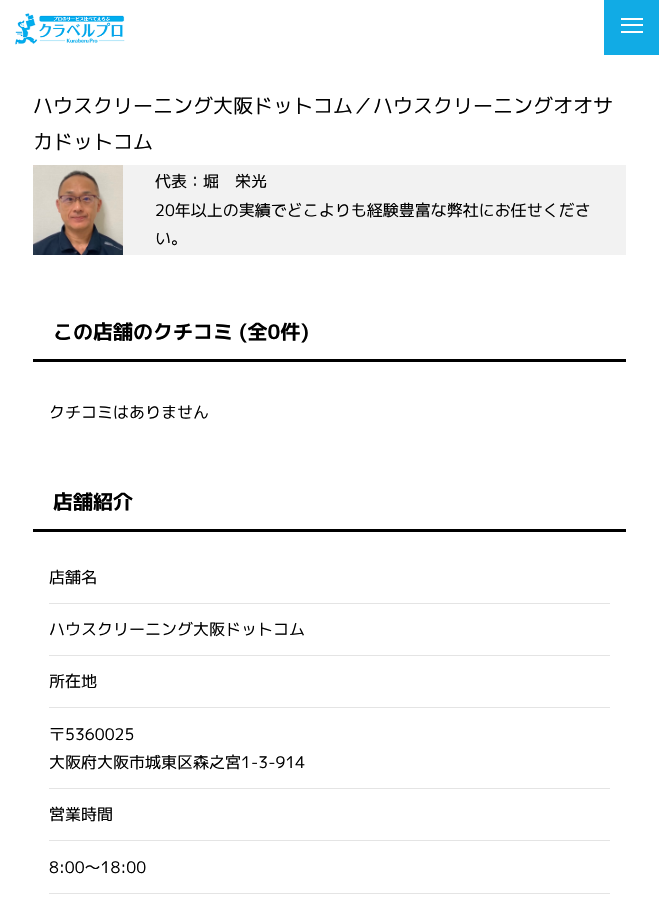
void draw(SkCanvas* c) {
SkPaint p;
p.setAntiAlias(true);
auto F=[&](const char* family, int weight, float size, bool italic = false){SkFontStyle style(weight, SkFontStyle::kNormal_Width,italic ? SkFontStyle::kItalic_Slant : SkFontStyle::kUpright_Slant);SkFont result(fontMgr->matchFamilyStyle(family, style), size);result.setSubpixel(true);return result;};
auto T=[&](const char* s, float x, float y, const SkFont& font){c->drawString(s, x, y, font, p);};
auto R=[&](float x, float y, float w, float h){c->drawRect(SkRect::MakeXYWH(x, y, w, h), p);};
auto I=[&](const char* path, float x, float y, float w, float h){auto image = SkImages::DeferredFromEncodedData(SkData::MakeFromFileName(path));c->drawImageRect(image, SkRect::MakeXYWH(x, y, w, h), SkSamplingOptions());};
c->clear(0xffffffff);
I("1.png",15,13,110,32);
p.setColor(0xff11abe5);
R(604,0,55,55);
p.setColor(0xffffffff);
R(621,18,22,2);
R(621,24,22,2);
R(621,31,22,2);
auto f1 = F("M PLUS 1p",400,20);
p.setColor(0xff000000);
T("ハウスクリーニング大阪ドットコム／ハウスクリーニングオオサ",33,113,f1);
T("カドットコム",33,149,f1);
I("2.png",33,165,90,90);
p.setColor(0xfff2f2f2);
R(123,165,503,90);
auto f2 = F("M PLUS 1p",400,16);
p.setColor(0xff000000);
T("代表：堀　栄光",155,187,f2);
T("20年以上の実績でどこよりも経験豊富な弊社にお任せくださ",155,216,f2);
T("い。",155,244,f2);
R(33,359,593,3);
auto f3 = F("M PLUS 1p",700,20);
T("この店舗のクチコミ (全0件)",53,339,f3);
T("クチコミはありません",49,418,f2);
R(33,529,593,3);
T("店舗紹介",53,509,f3);
p.setColor(0xffe4e4e4);
R(49,603,561,1);
auto f4 = F("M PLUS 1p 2",400,16);
p.setColor(0xff000000);
T("店舗名",49,583,f4);
p.setColor(0xffe4e4e4);
R(49,655,561,1);
p.setColor(0xff000000);
T("ハウスクリーニング大阪ドットコム",49,635,f2);
p.setColor(0xffe4e4e4);
R(49,707,561,1);
p.setColor(0xff000000);
T("所在地",49,687,f4);
p.setColor(0xffe4e4e4);
R(49,788,561,1);
p.setColor(0xff000000);
T("〒5360025",49,740,f2);
T("大阪府大阪市城東区森之宮1-3-914",49,768,f2);
p.setColor(0xffe4e4e4);
R(49,840,561,1);
p.setColor(0xff000000);
T("営業時間",49,820,f4);
p.setColor(0xffe4e4e4);
R(49,893,561,1);
p.setColor(0xff000000);
T("8:00〜18:00",49,873,f2);
}
